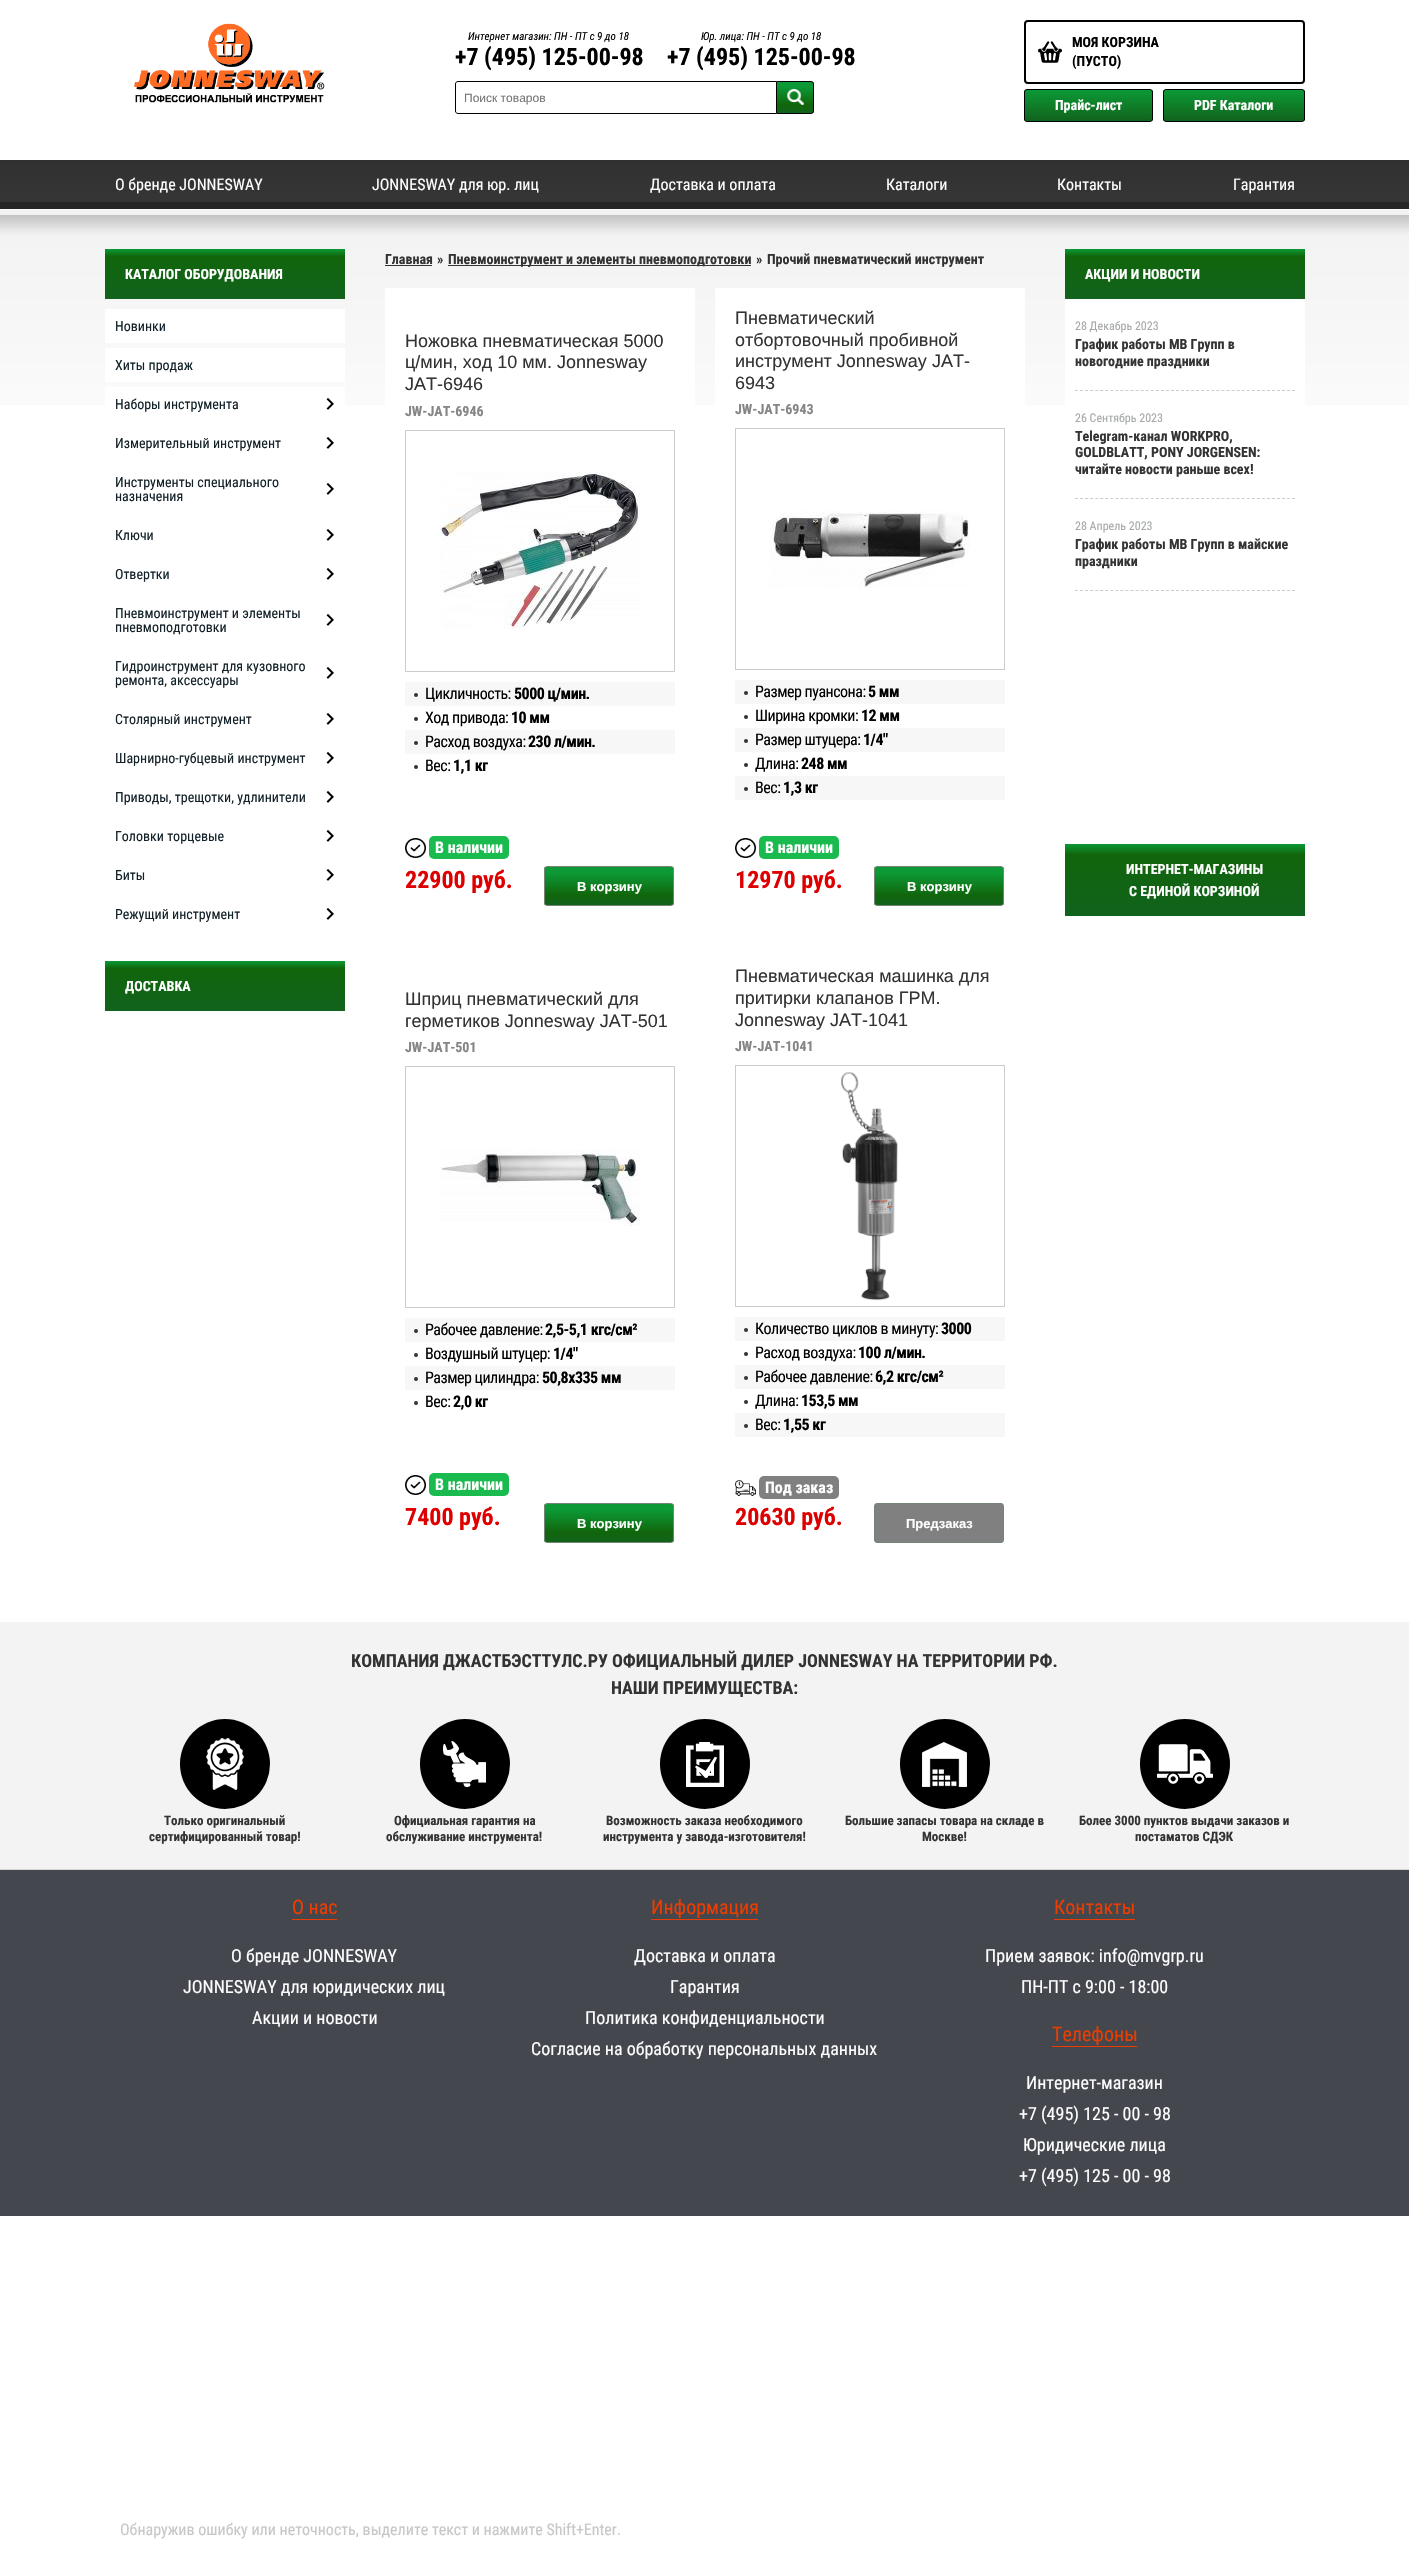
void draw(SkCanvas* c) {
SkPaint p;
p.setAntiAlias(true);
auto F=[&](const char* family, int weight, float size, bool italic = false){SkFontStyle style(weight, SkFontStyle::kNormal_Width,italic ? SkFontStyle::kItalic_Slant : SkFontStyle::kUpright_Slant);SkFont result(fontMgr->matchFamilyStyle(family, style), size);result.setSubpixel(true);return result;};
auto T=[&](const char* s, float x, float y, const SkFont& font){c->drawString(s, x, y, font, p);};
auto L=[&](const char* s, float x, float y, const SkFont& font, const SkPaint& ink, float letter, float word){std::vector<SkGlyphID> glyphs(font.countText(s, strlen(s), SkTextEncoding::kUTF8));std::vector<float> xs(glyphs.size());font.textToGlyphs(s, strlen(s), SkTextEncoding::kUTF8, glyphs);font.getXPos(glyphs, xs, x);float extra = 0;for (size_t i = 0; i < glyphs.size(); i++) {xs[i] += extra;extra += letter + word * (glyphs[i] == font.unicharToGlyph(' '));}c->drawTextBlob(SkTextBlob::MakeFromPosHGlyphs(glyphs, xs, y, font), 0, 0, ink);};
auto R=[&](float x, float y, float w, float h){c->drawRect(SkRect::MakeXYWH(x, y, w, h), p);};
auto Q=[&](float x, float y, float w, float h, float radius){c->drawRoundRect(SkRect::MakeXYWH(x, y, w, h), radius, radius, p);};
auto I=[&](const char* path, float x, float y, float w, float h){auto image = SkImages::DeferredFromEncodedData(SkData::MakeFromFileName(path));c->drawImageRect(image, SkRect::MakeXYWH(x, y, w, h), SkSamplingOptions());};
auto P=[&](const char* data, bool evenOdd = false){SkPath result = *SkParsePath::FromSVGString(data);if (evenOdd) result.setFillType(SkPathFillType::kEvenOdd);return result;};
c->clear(0xffffffff);
I("1.png",134,23,191,80);
auto f1 = F("Roboto Condensed",400,11,true);
p.setColor(0xff000000);
T("Интернет магазин: ПН - ПТ с 9 до 18",468,40,f1);
auto f2 = F("Roboto Condensed",700,24);
T("+7 (495) 125-00-98",455,65,f2);
T("Юр. лица: ПН - ПТ с 9 до 18",701,40,f1);
T("+7 (495) 125-00-98",667,65,f2);
p.setStroke(true);
p.setStrokeWidth(1);
c->drawPath(P("M458 81.5h318.5v32h-318.5c-1.5 0-2.5-1-2.5-2.5v-27c0-1.5 1-2.5 2.5-2.5z"),p);
auto f3 = F("Liberation Sans",400,12);
p.setStroke(false);
p.setColor(0xff757575);
T("Поиск товаров",464,102,f3);
I("2.png",777,82,37,31);
p.setColor(0xff000000);
c->drawPath(P("M777 81h34c1.5 0 3 1.5 3 3v27c0 1.5-1.5 3-3 3h-34zm0 1h34c1 0 2 1 2 2v27c0 1-1 2-2 2h-34z",true),p);
p.setStroke(true);
p.setStrokeWidth(2);
c->drawRoundRect(SkRect::MakeXYWH(1025,21,279,62),3,3,p);
I("3.png",1038,41,24,22);
auto f4 = F("Roboto Condensed",700,14);
p.setStroke(false);
T("МОЯ КОРЗИНА",1072,47,f4);
T("(ПУСТО)",1072,66,f4);
c->save();
c->clipPath(P("M1027 89h123c1.5 0 3 1.5 3 3v27c0 1.5-1.5 3-3 3h-123c-1.5 0-3-1.5-3-3v-27c0-1.5 1.5-3 3-3z"),true);
{
const SkColor colors[] = {0xff0c9936,0xff11631c};
const float stops[] = {0,1};
const SkPoint ends[] = {{1089,90}, {1089,121}};
p.setShader(SkGradientShader::MakeLinear(ends, colors, stops, 2, SkTileMode::kClamp));
p.setAlpha(255);
}
R(1024,90,129,31);
c->restore();
p.setStroke(true);
p.setStrokeWidth(1);
p.setShader(nullptr);
p.setColor(0xff000000);
c->drawRoundRect(SkRect::MakeXYWH(1024.5,89.5,128,32),2.5,2.5,p);
p.setStroke(false);
p.setColor(0xffffffff);
T("Прайс-лист",1055,110,f4);
c->save();
c->clipPath(P("M1166 89h136c1.5 0 3 1.5 3 3v27c0 1.5-1.5 3-3 3h-136c-1.5 0-3-1.5-3-3v-27c0-1.5 1.5-3 3-3z"),true);
{
const SkColor colors[] = {0xff0c9936,0xff11631c};
const float stops[] = {0,1};
const SkPoint ends[] = {{1234,90}, {1234,121}};
p.setShader(SkGradientShader::MakeLinear(ends, colors, stops, 2, SkTileMode::kClamp));
p.setAlpha(255);
}
R(1163,90,142,31);
c->restore();
p.setStroke(true);
p.setShader(nullptr);
p.setColor(0xff000000);
c->drawRoundRect(SkRect::MakeXYWH(1163.5,89.5,141,32),2.5,2.5,p);
p.setStroke(false);
p.setColor(0xffffffff);
T("PDF Каталоги",1194,110,f4);
{
const SkColor colors[] = {0xff363636,0xff313131};
const float stops[] = {0,1};
const SkPoint ends[] = {{705,209}, {705,160}};
p.setShader(SkGradientShader::MakeLinear(ends, colors, stops, 2, SkTileMode::kClamp));
p.setAlpha(255);
}
R(0,160,1409,42);
auto f5 = F("Roboto Condensed",400,16);
p.setShader(nullptr);
p.setColor(0xffffffff);
T("О бренде JONNESWAY",115,190,f5);
T("JONNESWAY для юр. лиц",372,190,f5);
T("Доставка и оплата",650,190,f5);
T("Каталоги",886,190,f5);
T("Контакты",1057,190,f5);
T("Гарантия",1233,190,f5);
p.setColor(0xff262626);
R(0,202,1409,7);
I("4.png",0,210,1409,195);
{
const SkColor colors[] = {0xff0c9936,0xff11650b,0xff11631d};
const float stops[] = {0,.15,1};
const SkPoint ends[] = {{225,249}, {225,299}};
p.setShader(SkGradientShader::MakeLinear(ends, colors, stops, 3, SkTileMode::kClamp));
p.setAlpha(255);
}
R(105,249,240,50);
p.setShader(nullptr);
p.setColor(0xffffffff);
T("КАТАЛОГ ОБОРУДОВАНИЯ",125,279,f4);
R(105,309,240,34);
auto f6 = F("Roboto Condensed",400,14);
p.setColor(0xff132229);
T("Новинки",115,331,f6);
p.setColor(0xffffffff);
R(105,348,240,34);
p.setColor(0xff132229);
T("Хиты продаж",115,370,f6);
p.setColor(0xffffffff);
R(105,387,240,18);
p.setColor(0xff132229);
T("Наборы инструмента",115,409,f6);
I("5.png",326,398,8,12);
T("Измерительный инструмент",115,448,f6);
I("5.png",326,437,8,12);
T("Инструменты специального",115,487,f6);
T("назначения",115,501,f6);
I("5.png",326,483,8,12);
T("Ключи",115,540,f6);
I("5.png",326,529,8,12);
T("Отвертки",115,579,f6);
I("5.png",326,568,8,12);
T("Пневмоинструмент и элементы",115,618,f6);
T("пневмоподготовки",115,632,f6);
I("5.png",326,614,8,12);
T("Гидроинструмент для кузовного",115,671,f6);
T("ремонта, аксессуары",115,685,f6);
I("5.png",326,667,8,12);
T("Столярный инструмент",115,724,f6);
I("5.png",326,713,8,12);
T("Шарнирно-губцевый инструмент",115,763,f6);
I("5.png",326,752,8,12);
T("Приводы, трещотки, удлинители",115,802,f6);
I("5.png",326,791,8,12);
T("Головки торцевые",115,841,f6);
I("5.png",326,830,8,12);
T("Биты",115,880,f6);
I("5.png",326,869,8,12);
T("Режущий инструмент",115,919,f6);
I("5.png",326,908,8,12);
{
const SkColor colors[] = {0xff0c9936,0xff11650b,0xff11631d};
const float stops[] = {0,.15,1};
const SkPoint ends[] = {{225,961}, {225,1011}};
p.setShader(SkGradientShader::MakeLinear(ends, colors, stops, 3, SkTileMode::kClamp));
p.setAlpha(255);
}
R(105,961,240,50);
p.setShader(nullptr);
p.setColor(0xffffffff);
T("ДОСТАВКА",125,991,f4);
p.setColor(0xff333333);
T("Главная",385,264,f4);
R(385,265,47,1);
T("»",437,264,f4);
R(448,265,303,1);
T("Пневмоинструмент и элементы пневмоподготовки",448,264,f4);
T("»",756,264,f4);
T("Прочий пневматический инструмент",767,264,f4);
p.setColor(0xffffffff);
R(385,288,310,117);
auto f7 = F("Liberation Sans",400,18);
p.setColor(0xff333333);
T("Ножовка пневматическая 5000",405,347,f7);
T("ц/мин, ход 10 мм. Jonnesway",405,368,f7);
T("JAT-6946",405,390,f7);
p.setColor(0xff858585);
T("JW-JAT-6946",405,416,f4);
p.setStroke(true);
p.setColor(0xffcccccc);
c->drawRect(SkRect::MakeXYWH(405.5,430.5,269,241),p);
I("6.png",440,472,200,157);
p.setStroke(false);
p.setColor(0xfff7f7f7);
R(405,682,270,24);
p.setColor(0xff333333);
c->drawCircle(416,695,2,p);
p.setColor(0xff000000);
L("Цикличность:",425,699,f5,p,-.5,0);
auto f8 = F("Roboto Condensed",700,16);
L("5000 ц/мин.",514,699,f8,p,-.5,0);
p.setColor(0xff333333);
c->drawCircle(416,719,2,p);
p.setColor(0xff000000);
L("Ход привода:",425,723,f5,p,-.5,0);
L("10 мм",511,723,f8,p,-.5,0);
p.setColor(0xfff7f7f7);
R(405,730,270,24);
p.setColor(0xff333333);
c->drawCircle(416,743,2,p);
p.setColor(0xff000000);
L("Расход воздуха:",425,747,f5,p,-.5,0);
L("230 л/мин.",528,747,f8,p,-.5,0);
p.setColor(0xff333333);
c->drawCircle(416,767,2,p);
p.setColor(0xff000000);
L("Вес:",425,771,f5,p,-.5,0);
L("1,1 кг",453,771,f8,p,-.5,0);
I("7.png",405,838,21,20);
p.setColor(0xff19bb4f);
Q(429,836,80,23,5);
p.setColor(0xffffffff);
T("В наличии",435,853,f8);
p.setColor(0xffde0000);
T("22900 руб.",405,888,f2);
c->save();
c->clipPath(P("M547 866h124c1.5 0 3 1.5 3 3v34c0 1.5-1.5 3-3 3h-124c-1.5 0-3-1.5-3-3v-34c0-1.5 1.5-3 3-3z"),true);
{
const SkColor colors[] = {0xff0c9936,0xff0c9936,0xff11650b,0xff11631d};
const float stops[] = {0,.16,.75,1};
const SkPoint ends[] = {{609,867}, {609,905}};
p.setShader(SkGradientShader::MakeLinear(ends, colors, stops, 4, SkTileMode::kClamp));
p.setAlpha(255);
}
R(544,867,130,38);
c->restore();
p.setStroke(true);
p.setShader(nullptr);
p.setColor(0xff768478);
c->drawRoundRect(SkRect::MakeXYWH(544.5,866.5,129,39),2.5,2.5,p);
auto f9 = F("Liberation Sans",700,13);
p.setStroke(false);
p.setColor(0xffffffff);
T("В корзину",577,891,f9);
R(715,288,310,117);
p.setColor(0xff333333);
T("Пневматический",735,324,f7);
T("отбортовочный пробивной",735,346,f7);
T("инструмент Jonnesway JAT-",735,367,f7);
T("6943",735,389,f7);
p.setColor(0xff858585);
T("JW-JAT-6943",735,414,f4);
p.setStroke(true);
p.setColor(0xffcccccc);
c->drawRect(SkRect::MakeXYWH(735.5,428.5,269,241),p);
I("8.png",770,511,200,77);
p.setStroke(false);
p.setColor(0xfff7f7f7);
R(735,680,270,24);
p.setColor(0xff333333);
c->drawCircle(746,693,2,p);
p.setColor(0xff000000);
L("Размер пуансона:",755,697,f5,p,-.5,0);
L("5 мм",868,697,f8,p,-.5,0);
p.setColor(0xff333333);
c->drawCircle(746,717,2,p);
p.setColor(0xff000000);
L("Ширина кромки:",755,721,f5,p,-.5,0);
L("12 мм",861,721,f8,p,-.5,0);
p.setColor(0xfff7f7f7);
R(735,728,270,24);
p.setColor(0xff333333);
c->drawCircle(746,741,2,p);
p.setColor(0xff000000);
L("Размер штуцера:",755,745,f5,p,-.5,0);
L("1/4\"",863,745,f8,p,-.5,0);
p.setColor(0xff333333);
c->drawCircle(746,765,2,p);
p.setColor(0xff000000);
L("Длина:",755,769,f5,p,-.5,0);
L("248 мм",801,769,f8,p,-.5,0);
p.setColor(0xfff7f7f7);
R(735,776,270,24);
p.setColor(0xff333333);
c->drawCircle(746,789,2,p);
p.setColor(0xff000000);
L("Вес:",755,793,f5,p,-.5,0);
L("1,3 кг",783,793,f8,p,-.5,0);
I("9.png",735,838,21,20);
p.setColor(0xff19bb4f);
Q(759,836,80,23,5);
p.setColor(0xffffffff);
T("В наличии",765,853,f8);
p.setColor(0xffde0000);
T("12970 руб.",735,888,f2);
c->save();
c->clipPath(P("M877 866h124c1.5 0 3 1.5 3 3v34c0 1.5-1.5 3-3 3h-124c-1.5 0-3-1.5-3-3v-34c0-1.5 1.5-3 3-3z"),true);
{
const SkColor colors[] = {0xff0c9936,0xff0c9936,0xff11650b,0xff11631d};
const float stops[] = {0,.16,.75,1};
const SkPoint ends[] = {{939,867}, {939,905}};
p.setShader(SkGradientShader::MakeLinear(ends, colors, stops, 4, SkTileMode::kClamp));
p.setAlpha(255);
}
R(874,867,130,38);
c->restore();
p.setStroke(true);
p.setShader(nullptr);
p.setColor(0xff768478);
c->drawRoundRect(SkRect::MakeXYWH(874.5,866.5,129,39),2.5,2.5,p);
p.setStroke(false);
p.setColor(0xffffffff);
T("В корзину",907,891,f9);
p.setColor(0xff333333);
T("Шприц пневматический для",405,1005,f7);
T("герметиков Jonnesway JAT-501",405,1027,f7);
p.setColor(0xff858585);
T("JW-JAT-501",405,1052,f4);
p.setStroke(true);
p.setColor(0xffcccccc);
c->drawRect(SkRect::MakeXYWH(405.5,1066.5,269,241),p);
I("10.png",440,1149,200,77);
p.setStroke(false);
p.setColor(0xfff7f7f7);
R(405,1318,270,24);
p.setColor(0xff333333);
c->drawCircle(416,1331,2,p);
p.setColor(0xff000000);
L("Рабочее давление:",425,1335,f5,p,-.5,0);
L("2,5-5,1 кгс/см²",545,1335,f8,p,-.5,0);
p.setColor(0xff333333);
c->drawCircle(416,1355,2,p);
p.setColor(0xff000000);
L("Воздушный штуцер:",425,1359,f5,p,-.5,0);
L("1/4\"",553,1359,f8,p,-.5,0);
p.setColor(0xfff7f7f7);
R(405,1366,270,24);
p.setColor(0xff333333);
c->drawCircle(416,1379,2,p);
p.setColor(0xff000000);
L("Размер цилиндра:",425,1383,f5,p,-.5,0);
L("50,8х335 мм",542,1383,f8,p,-.5,0);
p.setColor(0xff333333);
c->drawCircle(416,1403,2,p);
p.setColor(0xff000000);
L("Вес:",425,1407,f5,p,-.5,0);
L("2,0 кг",453,1407,f8,p,-.5,0);
I("7.png",405,1475,21,20);
p.setColor(0xff19bb4f);
Q(429,1473,80,23,5);
p.setColor(0xffffffff);
T("В наличии",435,1490,f8);
p.setColor(0xffde0000);
T("7400 руб.",405,1525,f2);
c->save();
c->clipPath(P("M547 1503h124c1.5 0 3 1.5 3 3v34c0 1.5-1.5 3-3 3h-124c-1.5 0-3-1.5-3-3v-34c0-1.5 1.5-3 3-3z"),true);
{
const SkColor colors[] = {0xff0c9936,0xff0c9936,0xff11650b,0xff11631d};
const float stops[] = {0,.16,.75,1};
const SkPoint ends[] = {{609,1504}, {609,1542}};
p.setShader(SkGradientShader::MakeLinear(ends, colors, stops, 4, SkTileMode::kClamp));
p.setAlpha(255);
}
R(544,1504,130,38);
c->restore();
p.setStroke(true);
p.setShader(nullptr);
p.setColor(0xff768478);
c->drawRoundRect(SkRect::MakeXYWH(544.5,1503.5,129,39),2.5,2.5,p);
p.setStroke(false);
p.setColor(0xffffffff);
T("В корзину",577,1528,f9);
p.setColor(0xff333333);
T("Пневматическая машинка для",735,982,f7);
T("притирки клапанов ГРМ.",735,1004,f7);
T("Jonnesway JAT-1041",735,1026,f7);
p.setColor(0xff858585);
T("JW-JAT-1041",735,1051,f4);
p.setStroke(true);
p.setColor(0xffcccccc);
c->drawRect(SkRect::MakeXYWH(735.5,1065.5,269,241),p);
I("11.png",841,1072,57,229);
p.setStroke(false);
p.setColor(0xfff7f7f7);
R(735,1317,270,24);
p.setColor(0xff333333);
c->drawCircle(746,1330,2,p);
p.setColor(0xff000000);
L("Количество циклов в минуту:",755,1334,f5,p,-.5,0);
L("3000",941,1334,f8,p,-.5,0);
p.setColor(0xff333333);
c->drawCircle(746,1354,2,p);
p.setColor(0xff000000);
L("Расход воздуха:",755,1358,f5,p,-.5,0);
L("100 л/мин.",858,1358,f8,p,-.5,0);
p.setColor(0xfff7f7f7);
R(735,1365,270,24);
p.setColor(0xff333333);
c->drawCircle(746,1378,2,p);
p.setColor(0xff000000);
L("Рабочее давление:",755,1382,f5,p,-.5,0);
L("6,2 кгс/см²",875,1382,f8,p,-.5,0);
p.setColor(0xff333333);
c->drawCircle(746,1402,2,p);
p.setColor(0xff000000);
L("Длина:",755,1406,f5,p,-.5,0);
L("153,5 мм",801,1406,f8,p,-.5,0);
p.setColor(0xfff7f7f7);
R(735,1413,270,24);
p.setColor(0xff333333);
c->drawCircle(746,1426,2,p);
p.setColor(0xff000000);
L("Вес:",755,1430,f5,p,-.5,0);
L("1,55 кг",783,1430,f8,p,-.5,0);
I("12.png",735,1480,21,16);
p.setColor(0xff808080);
Q(759,1476,80,23,5);
p.setColor(0xffffffff);
T("Под заказ",765,1493,f8);
p.setColor(0xffde0000);
T("20630 руб.",735,1525,f2);
p.setColor(0xff808080);
c->drawRoundRect(SkRect::MakeXYWH(874.5,1503.5,129,39),2.5,2.5,p);
p.setStroke(true);
p.setColor(0xff768478);
c->drawRoundRect(SkRect::MakeXYWH(874.5,1503.5,129,39),2.5,2.5,p);
p.setStroke(false);
p.setColor(0xffffffff);
T("Предзаказ",906,1528,f9);
R(1065,299,240,106);
{
const SkColor colors[] = {0xff0c9936,0xff11650b,0xff11631d};
const float stops[] = {0,.15,1};
const SkPoint ends[] = {{1185,249}, {1185,299}};
p.setShader(SkGradientShader::MakeLinear(ends, colors, stops, 3, SkTileMode::kClamp));
p.setAlpha(255);
}
R(1065,249,240,50);
p.setShader(nullptr);
p.setColor(0xffffffff);
T("АКЦИИ И НОВОСТИ",1085,279,f4);
p.setStroke(true);
p.setColor(0xffcccccc);
p.setPathEffect(SkDashPathEffect::Make({{3,2.05f}}, 0));
c->drawPath(P("M1075 390.5h220"),p);
p.setPathEffect(nullptr);
auto f10 = F("Roboto Condensed",400,12);
p.setStroke(false);
p.setColor(0xffa6a9aa);
T("28 Декабрь 2023",1075,330,f10);
p.setColor(0xff333333);
T("График работы МВ Групп в",1075,349,f4);
T("новогодние праздники",1075,366,f4);
p.setStroke(true);
p.setColor(0xffcccccc);
p.setPathEffect(SkDashPathEffect::Make({{3,2.05f}}, 0));
c->drawPath(P("M1075 498.5h220"),p);
p.setPathEffect(nullptr);
p.setStroke(false);
p.setColor(0xffa6a9aa);
T("26 Сентябрь 2023",1075,422,f10);
p.setColor(0xff333333);
T("Telegram-канал WORKPRO,",1075,441,f4);
T("GOLDBLATT, PONY JORGENSEN:",1075,457,f4);
T("читайте новости раньше всех!",1075,474,f4);
p.setStroke(true);
p.setColor(0xffcccccc);
p.setPathEffect(SkDashPathEffect::Make({{3,2.05f}}, 0));
c->drawPath(P("M1075 590.5h220"),p);
p.setPathEffect(nullptr);
p.setStroke(false);
p.setColor(0xffa6a9aa);
T("28 Апрель 2023",1075,530,f10);
p.setColor(0xff333333);
T("График работы МВ Групп в майские",1075,549,f4);
T("праздники",1075,566,f4);
{
const SkColor colors[] = {0xff0c9936,0xff11650b,0xff11631d};
const float stops[] = {0,.15,1};
const SkPoint ends[] = {{1185,844}, {1185,916}};
p.setShader(SkGradientShader::MakeLinear(ends, colors, stops, 3, SkTileMode::kClamp));
p.setAlpha(255);
}
R(1065,844,240,72);
p.setShader(nullptr);
p.setColor(0xffffffff);
T("ИНТЕРНЕТ-МАГАЗИНЫ",1126,874,f4);
T("С ЕДИНОЙ КОРЗИНОЙ",1129,896,f4);
p.setColor(0xfff3f3f3);
R(0,1622,1409,247);
p.setColor(0xffd6d6d6);
R(0,1869,1409,1);
auto f11 = F("Roboto Condensed",700,18);
p.setColor(0xff333333);
T("КОМПАНИЯ ДЖАСТБЭСТТУЛС.РУ ОФИЦИАЛЬНЫЙ ДИЛЕР JONNESWAY НА ТЕРРИТОРИИ РФ.",351,1667,f11);
T("НАШИ ПРЕИМУЩЕСТВА:",611,1694,f11);
p.setColor(0xff000000);
c->drawCircle(225,1764,45,p);
I("13.png",206,1738,38,52);
auto f12 = F("Roboto Condensed",700,13);
p.setColor(0xff333333);
T("Только оригинальный",164,1825,f12);
T("сертифицированный товар!",149,1841,f12);
p.setColor(0xff000000);
c->drawCircle(465,1764,45,p);
I("14.png",443,1741,43,46);
p.setColor(0xff333333);
T("Официальная гарантия на",394,1825,f12);
T("обслуживание инструмента!",386,1841,f12);
p.setColor(0xff000000);
c->drawCircle(705,1764,45,p);
I("15.png",686,1742,38,45);
p.setColor(0xff333333);
T("Возможность заказа необходимого",606,1825,f12);
T("инструмента у завода-изготовителя!",603,1841,f12);
p.setColor(0xff000000);
c->drawCircle(945,1764,45,p);
I("16.png",922,1742,45,45);
p.setColor(0xff333333);
T("Большие запасы товара на складе в",845,1825,f12);
T("Москве!",922,1841,f12);
p.setColor(0xff000000);
c->drawCircle(1185,1764,45,p);
I("17.png",1157,1744,56,40);
p.setColor(0xff333333);
T("Более 3000 пунктов выдачи заказов и",1079,1825,f12);
T("постаматов СДЭК",1135,1841,f12);
p.setColor(0xff44474e);
R(0,1870,1409,346);
p.setColor(0xffeb3d00);
R(292,1919,45,1);
auto f13 = F("Roboto Condensed",400,20);
T("О нас",292,1914,f13);
auto f14 = F("Roboto Condensed",400,18);
p.setColor(0xffffffff);
T("О бренде JONNESWAY",231,1962,f14);
T("JONNESWAY для юридических лиц",183,1993,f14);
T("Акции и новости",252,2024,f14);
p.setColor(0xffeb3d00);
R(651,1919,107,1);
T("Информация",651,1914,f13);
p.setColor(0xffffffff);
T("Доставка и оплата",634,1962,f14);
T("Гарантия",670,1993,f14);
T("Политика конфиденциальности",585,2024,f14);
T("Согласие на обработку персональных данных",531,2055,f14);
p.setColor(0xffeb3d00);
R(1054,1919,81,1);
T("Контакты",1054,1914,f13);
p.setColor(0xffffffff);
T("Прием заявок: info@mvgrp.ru",985,1962,f14);
T("ПН-ПТ с 9:00 - 18:00",1021,1993,f14);
p.setColor(0xffeb3d00);
R(1052,2046,85,1);
T("Телефоны",1052,2041,f13);
p.setColor(0xffffffff);
T("Интернет-магазин",1026,2089,f14);
T("+7 (495) 125 - 00 - 98",1019,2120,f14);
T("Юридические лица",1023,2151,f14);
T("+7 (495) 125 - 00 - 98",1019,2182,f14);
p.setColor(0xffc7c7c7);
T("Обнаружив ошибку или неточность, выделите текст и нажмите Shift+Enter.",120,2535,f5);
}
